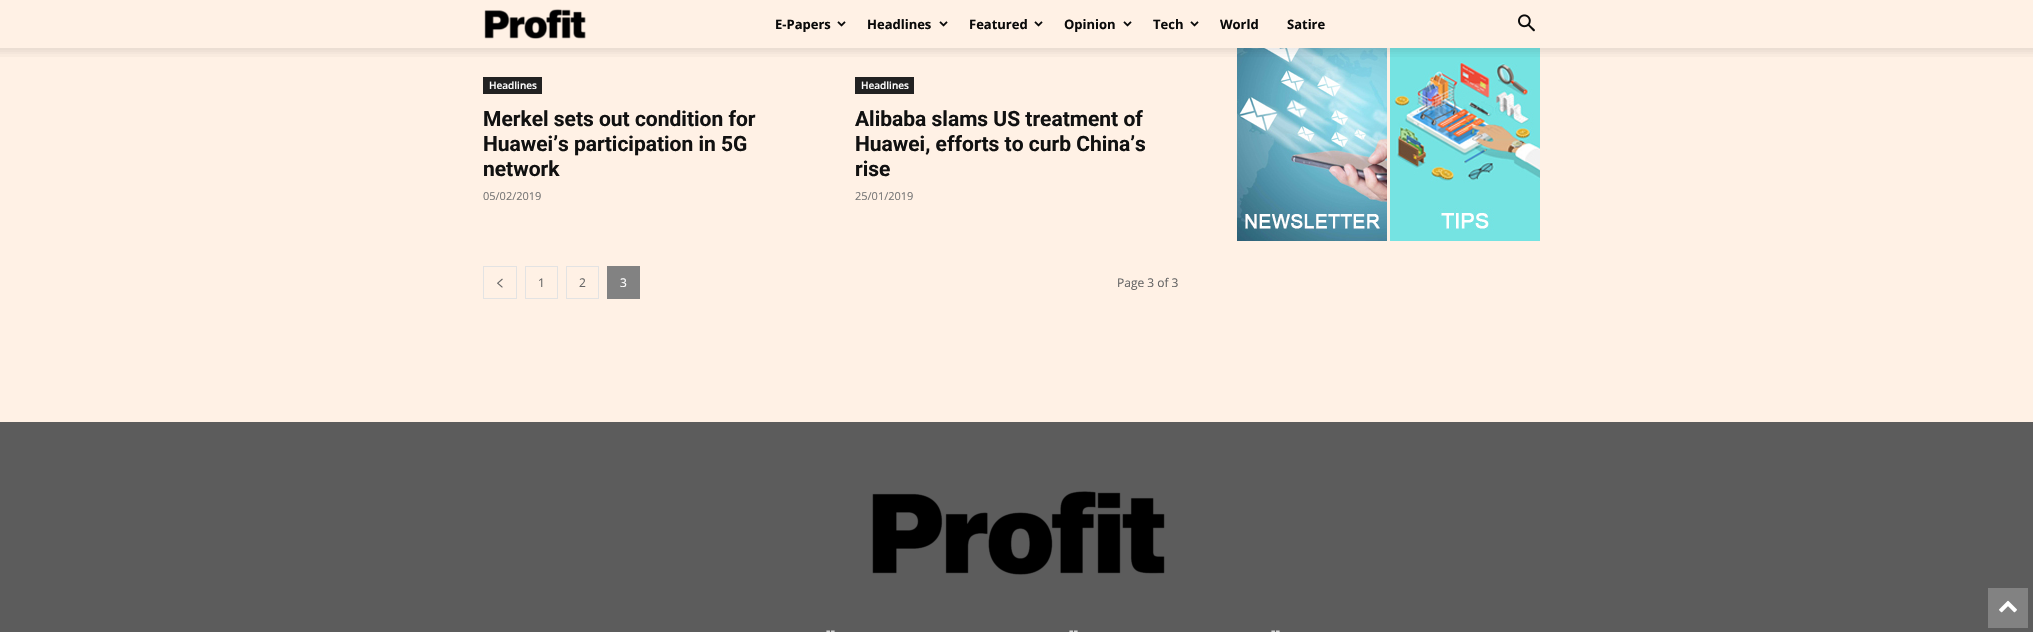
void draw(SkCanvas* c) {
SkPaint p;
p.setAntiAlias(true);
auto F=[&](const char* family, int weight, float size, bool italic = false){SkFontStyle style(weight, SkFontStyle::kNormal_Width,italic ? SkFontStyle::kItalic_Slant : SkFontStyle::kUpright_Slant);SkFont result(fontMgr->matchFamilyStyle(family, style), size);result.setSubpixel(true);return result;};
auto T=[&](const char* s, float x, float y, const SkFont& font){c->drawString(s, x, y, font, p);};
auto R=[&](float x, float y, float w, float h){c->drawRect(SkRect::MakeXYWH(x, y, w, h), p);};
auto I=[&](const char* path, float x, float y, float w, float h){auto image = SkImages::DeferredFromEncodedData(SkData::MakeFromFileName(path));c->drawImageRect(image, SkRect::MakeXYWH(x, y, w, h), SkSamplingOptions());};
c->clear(0xfffff1e5);
I("1.png",484,9,102,30);
auto f1 = F("Open Sans",700,13);
p.setColor(0xff0a0a0a);
T("E-Papers",775,29,f1);
I("2.png",837,21,9,6);
T("Headlines",867,29,f1);
I("2.png",939,21,9,6);
T("Featured",969,29,f1);
I("2.png",1034,21,9,6);
T("Opinion",1064,29,f1);
I("2.png",1123,21,9,6);
T("Tech",1153,29,f1);
I("2.png",1190,21,9,6);
T("World",1220,29,f1);
T("Satire",1287,29,f1);
I("3.png",1518,14,17,18);
I("6.png",1237,48,150,193);
I("7.png",1390,48,150,193);
I("4.png",0,48,2033,9);
p.setColor(0xff222222);
R(483,77,59,17);
auto f2 = F("Open Sans",600,10);
p.setColor(0xffffffff);
T("Headlines",489,89,f2);
auto f3 = F("Roboto",700,21);
p.setColor(0xff111111);
T("Merkel sets out condition for",483,126,f3);
T("Huawei’s participation in 5G",483,151,f3);
T("network",483,176,f3);
auto f4 = F("Open Sans",400,11);
p.setColor(0xff767676);
T("05/02/2019",483,200,f4);
p.setColor(0xff222222);
R(855,77,59,17);
p.setColor(0xffffffff);
T("Headlines",861,89,f2);
p.setColor(0xff111111);
T("Alibaba slams US treatment of",855,126,f3);
T("Huawei, efforts to curb China’s",855,151,f3);
T("rise",855,176,f3);
p.setColor(0xff767676);
T("25/01/2019",855,200,f4);
p.setStroke(true);
p.setStrokeWidth(1);
p.setColor(0xffe3e3e3);
c->drawRect(SkRect::MakeXYWH(483.5,266.5,33,32),p);
I("5.png",497,278,6,10);
c->drawRect(SkRect::MakeXYWH(525.5,266.5,32,32),p);
auto f5 = F("Open Sans",400,12);
p.setStroke(false);
p.setColor(0xff666666);
T("1",538,287,f5);
p.setStroke(true);
p.setColor(0xffe3e3e3);
c->drawRect(SkRect::MakeXYWH(566.5,266.5,32,32),p);
p.setStroke(false);
p.setColor(0xff666666);
T("2",579,287,f5);
p.setColor(0xff828282);
R(607,266,33,33);
p.setColor(0xffffffff);
T("3",620,287,f5);
p.setColor(0xff666666);
T("Page 3 of 3",1117,287,f5);
p.setColor(0xff5c5c5c);
R(0,422,2033,210);
I("8.png",872,491,293,84);
auto f6 = F("Open Sans",400,14);
p.setColor(0xffeaeaea);
T("--",826,635,f6);
T("--",1069,635,f6);
T("--",1271,635,f6);
p.setColor(0xff828282);
R(1988,588,40,40);
I("9.png",1999,600,18,13);
}
